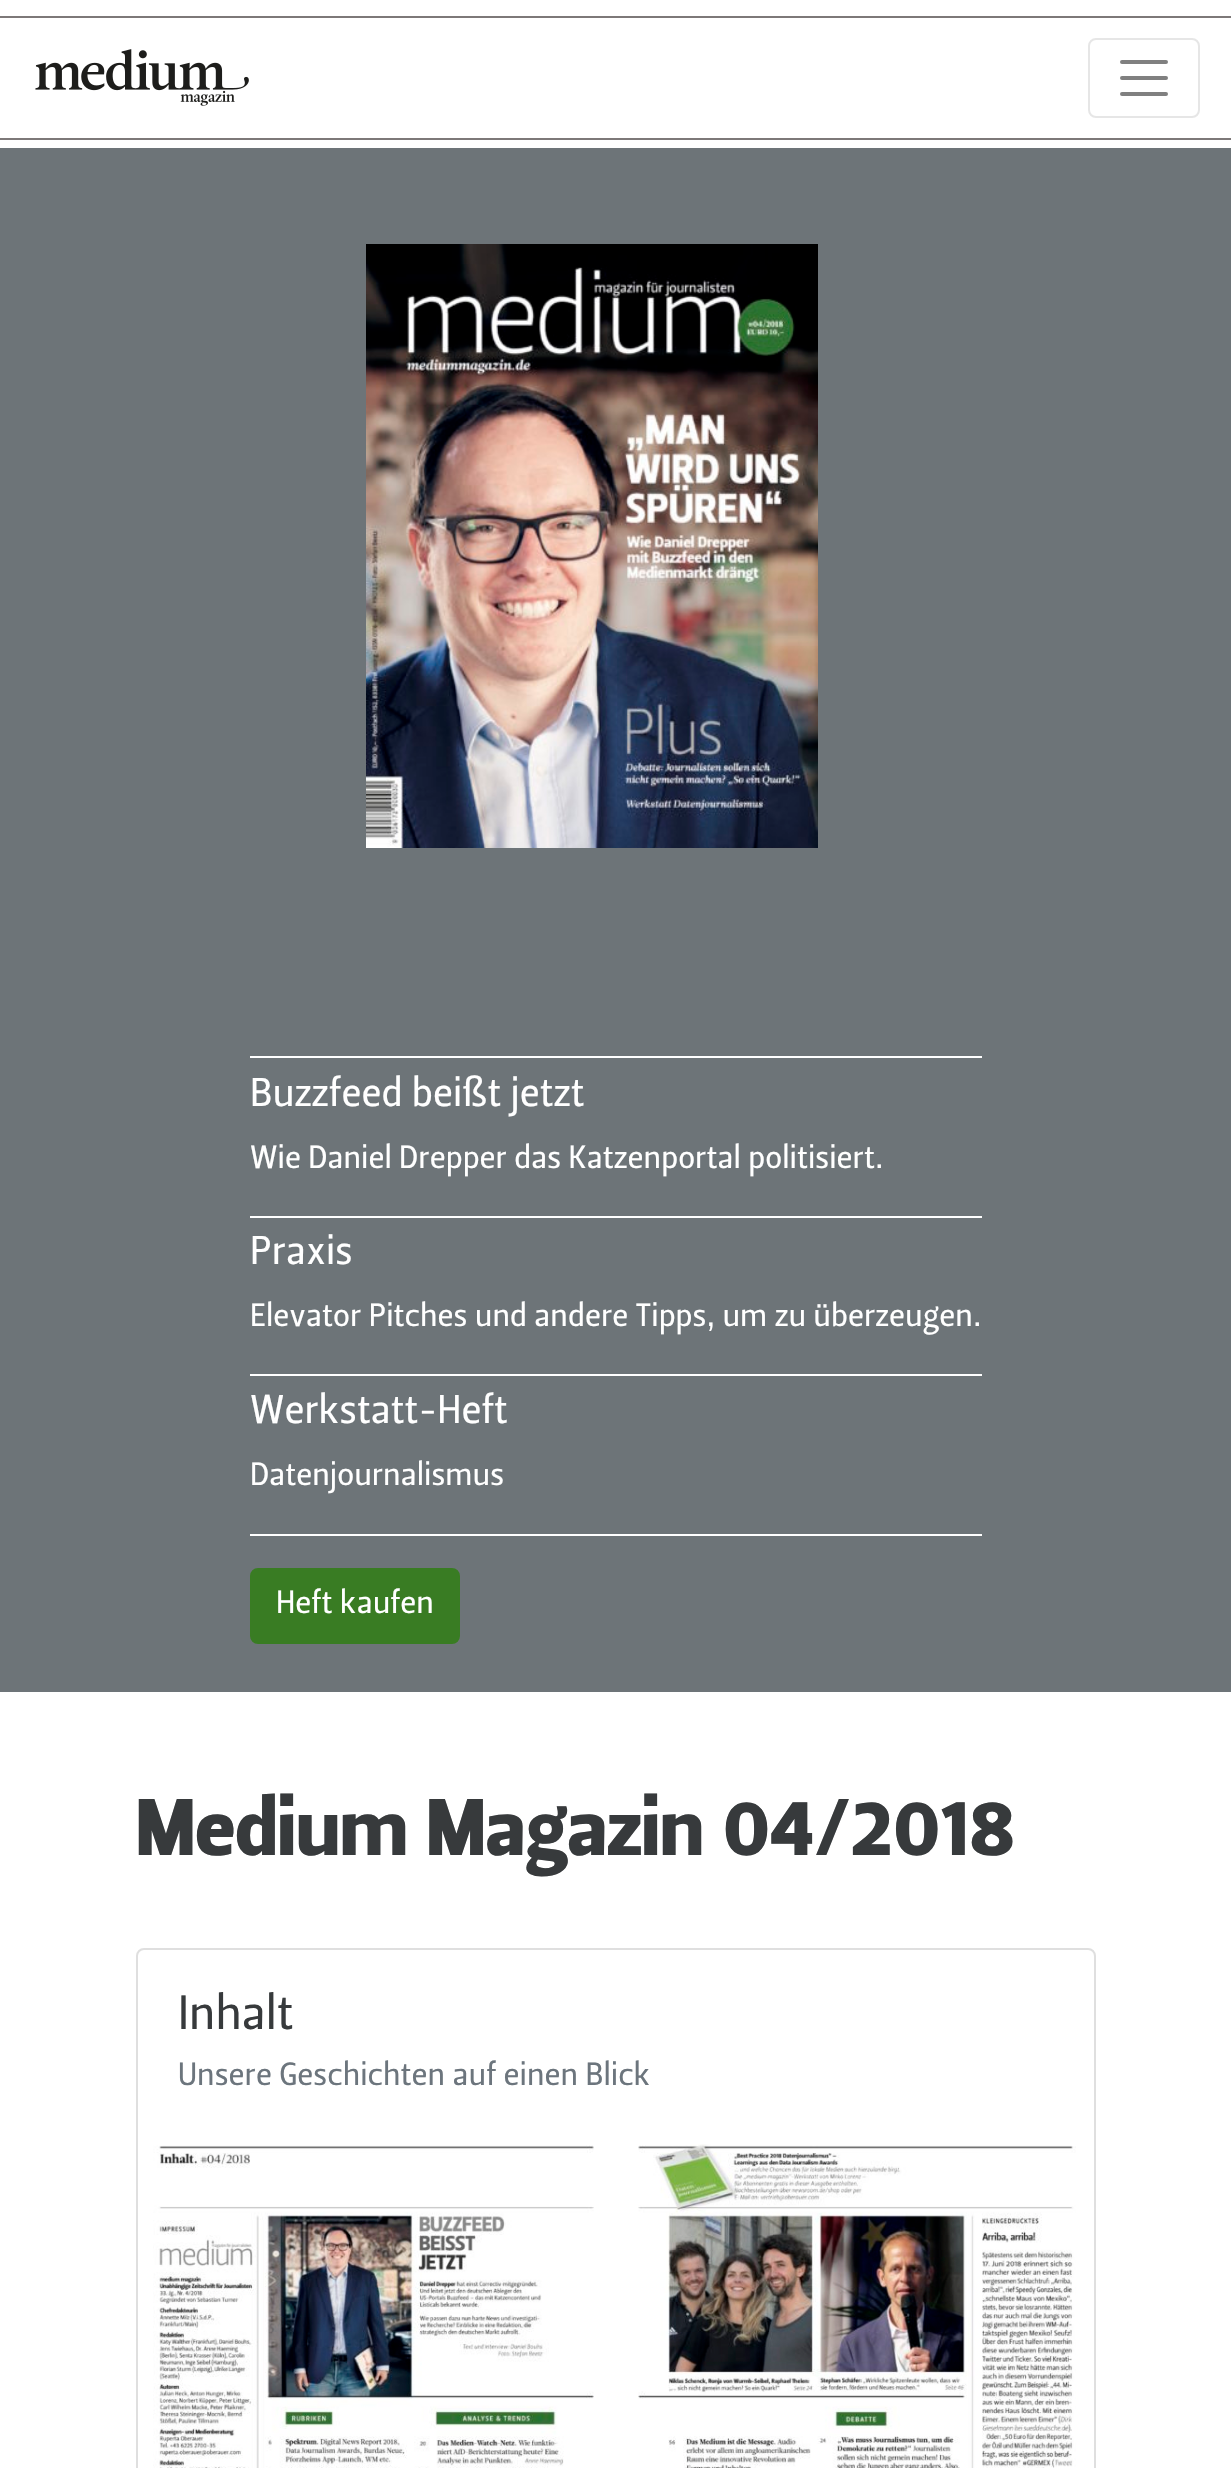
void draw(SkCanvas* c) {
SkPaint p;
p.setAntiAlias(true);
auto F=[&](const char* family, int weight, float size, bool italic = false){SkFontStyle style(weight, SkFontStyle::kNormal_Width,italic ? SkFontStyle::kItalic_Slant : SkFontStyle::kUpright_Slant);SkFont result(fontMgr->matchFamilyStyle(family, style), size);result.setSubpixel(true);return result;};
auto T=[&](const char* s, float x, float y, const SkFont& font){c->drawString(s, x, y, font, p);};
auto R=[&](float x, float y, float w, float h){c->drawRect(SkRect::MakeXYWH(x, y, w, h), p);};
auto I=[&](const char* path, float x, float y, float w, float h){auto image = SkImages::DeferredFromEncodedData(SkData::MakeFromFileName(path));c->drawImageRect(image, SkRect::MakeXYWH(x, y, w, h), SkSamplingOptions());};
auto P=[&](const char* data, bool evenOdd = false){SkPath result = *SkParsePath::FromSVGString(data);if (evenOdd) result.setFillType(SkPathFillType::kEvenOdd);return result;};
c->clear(0xffffffff);
p.setColor(0xff7d7878);
R(0,16,1231,2);
R(0,138,1231,2);
I("1.png",35,49,214,57);
p.setStroke(true);
p.setStrokeWidth(2);
p.setColor(0xffe6e6e6);
c->drawRoundRect(SkRect::MakeXYWH(1089,39,110,78),7,7,p);
p.setStrokeWidth(4);
p.setStrokeCap(SkPaint::kRound_Cap);
p.setColor(0xff808080);
c->drawPath(P("M1122 62h44m-44 16h44m-44 16h44"),p);
p.setStroke(false);
p.setColor(0xff6d7478);
R(0,148,1231,1544);
I("2.png",366,244,452,604);
p.setColor(0xffffffff);
R(250,1056,732,2);
auto f1 = F("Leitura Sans",400,40);
T("Buzzfeed beißt jetzt",250,1106,f1);
auto f2 = F("Leitura Sans",400,32);
T("Wie Daniel Drepper das Katzenportal politisiert.",250,1168,f2);
R(250,1216,732,2);
T("Praxis",250,1264,f1);
T("Elevator Pitches und andere Tipps, um zu überzeugen.",250,1326,f2);
R(250,1374,732,2);
R(250,1534,732,2);
T("Werkstatt-Heft",250,1423,f1);
T("Datenjournalismus",250,1485,f2);
p.setColor(0xff397c23);
c->drawRoundRect(SkRect::MakeXYWH(251,1569,208,74),7,7,p);
p.setStroke(true);
p.setStrokeWidth(2);
p.setStrokeCap(SkPaint::kButt_Cap);
c->drawRoundRect(SkRect::MakeXYWH(251,1569,208,74),7,7,p);
p.setStroke(false);
p.setColor(0xffffffff);
T("Heft kaufen",276,1613,f2);
auto f3 = F("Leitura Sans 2",400,80);
p.setColor(0xff373a3c);
T("Medium Magazin 04/2018",136,1855,f3);
p.setStroke(true);
p.setColor(0xffdfdfdf);
c->drawRoundRect(SkRect::MakeXYWH(137,1949,958,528),7,7,p);
auto f4 = F("Leitura Sans",400,48);
p.setStroke(false);
p.setColor(0xff373a3c);
T("Inhalt",178,2029,f4);
p.setColor(0xff6c757d);
T("Unsere Geschichten auf einen Blick",178,2085,f2);
I("3.png",153,2144,923,324);
}
